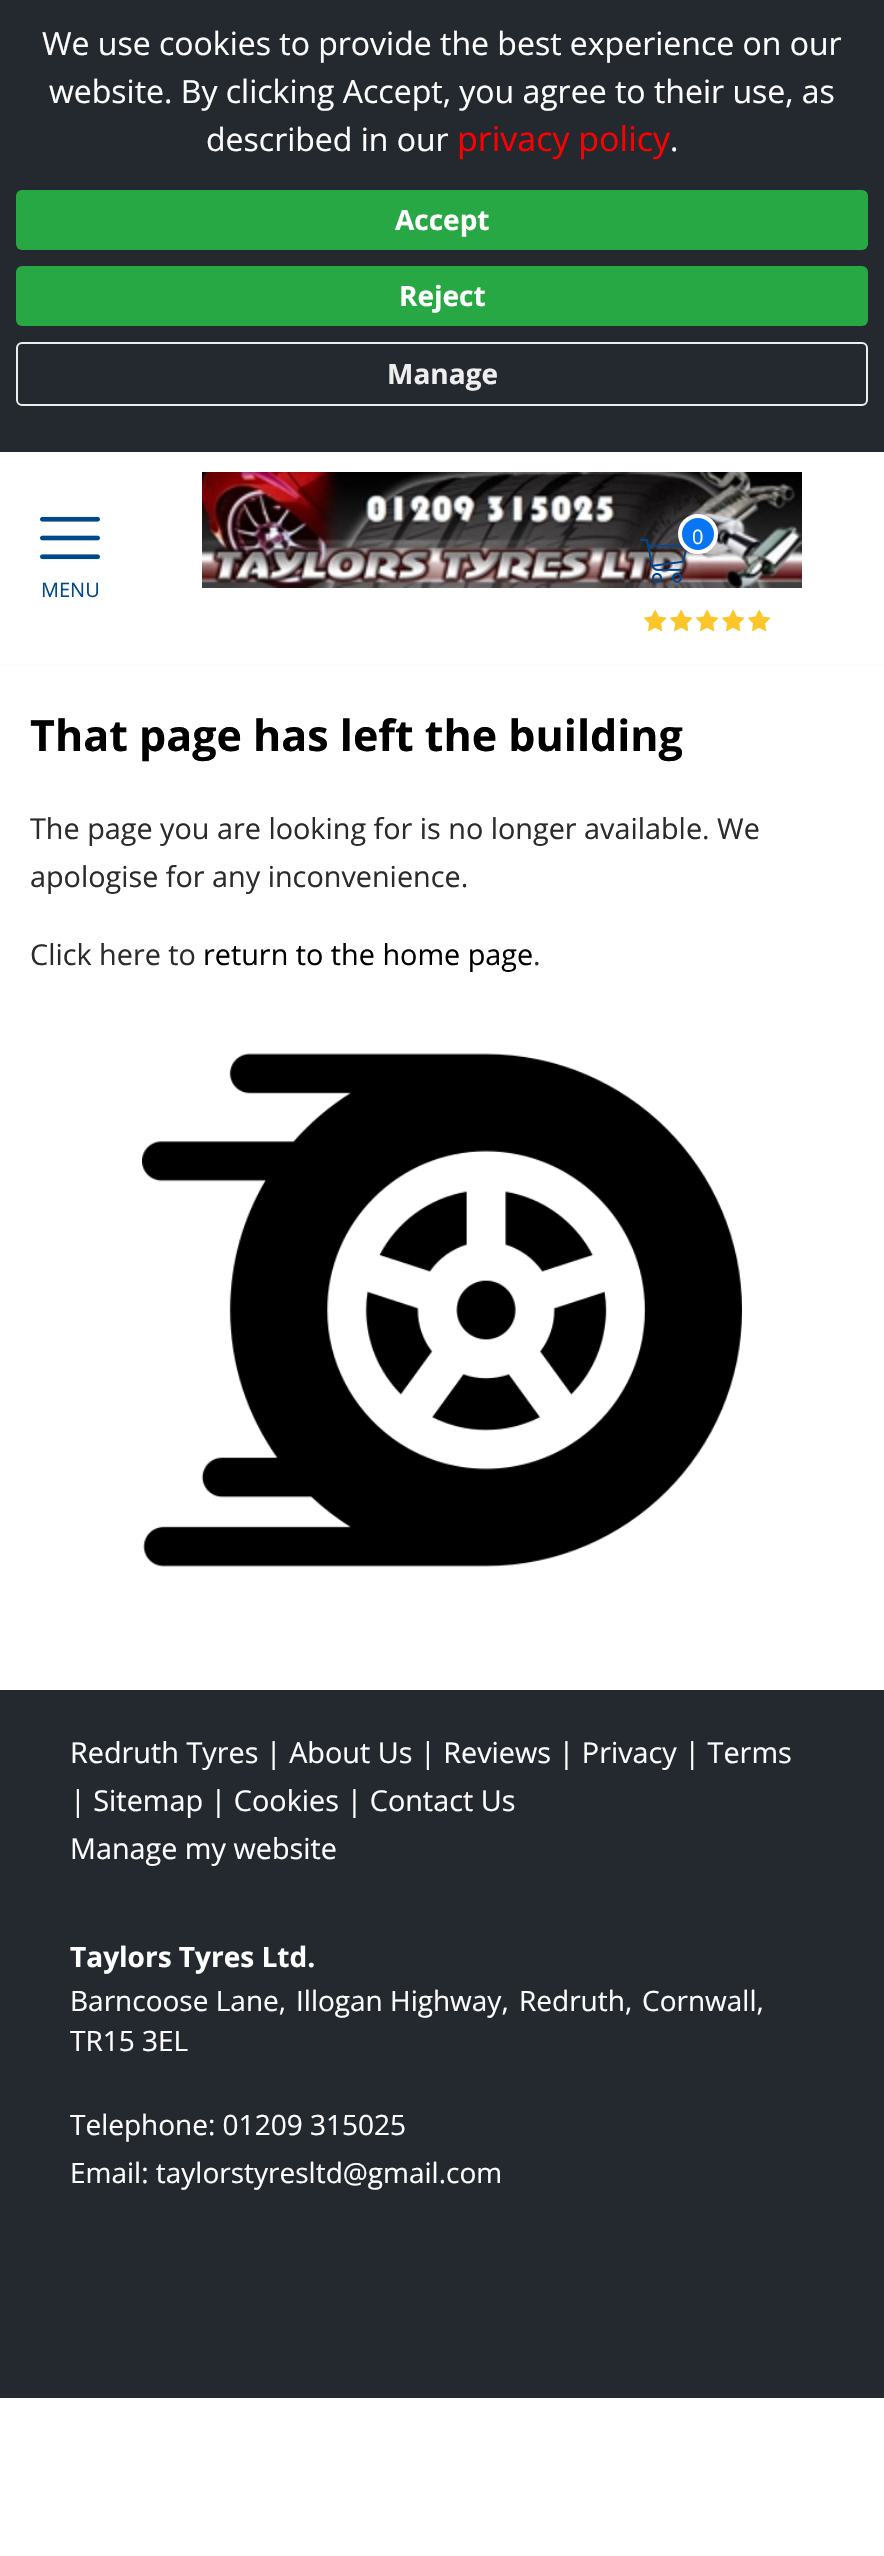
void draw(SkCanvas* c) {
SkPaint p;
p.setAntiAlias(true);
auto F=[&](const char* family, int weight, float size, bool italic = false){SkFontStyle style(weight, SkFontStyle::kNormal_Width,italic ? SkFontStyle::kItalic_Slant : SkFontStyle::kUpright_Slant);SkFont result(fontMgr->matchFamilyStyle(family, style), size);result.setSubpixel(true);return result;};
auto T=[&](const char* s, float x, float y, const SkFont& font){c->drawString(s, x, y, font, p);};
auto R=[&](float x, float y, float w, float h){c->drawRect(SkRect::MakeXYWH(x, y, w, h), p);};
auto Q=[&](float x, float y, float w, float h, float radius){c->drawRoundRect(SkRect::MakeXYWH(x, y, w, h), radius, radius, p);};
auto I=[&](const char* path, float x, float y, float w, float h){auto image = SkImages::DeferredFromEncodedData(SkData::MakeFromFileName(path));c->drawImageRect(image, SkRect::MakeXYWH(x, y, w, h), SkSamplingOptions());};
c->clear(0xffffffff);
p.setColor(0xff24292f);
R(0,0,884,452);
auto f1 = F("Open Sans",400,32);
p.setColor(0xffffffff);
T("We use cookies to provide the best experience on our",42,55,f1);
T("website. By clicking Accept, you agree to their use, as",49,103,f1);
T("described in our",206,151,f1);
auto f2 = F("Open Sans",400,34);
p.setColor(0xffff0000);
T("privacy policy",457,151,f2);
p.setColor(0xffffffff);
T(".",670,151,f1);
p.setColor(0xff28a745);
Q(16,190,852,60,6);
auto f3 = F("Open Sans",700,28);
p.setColor(0xffffffff);
T("Accept",395,230,f3);
p.setColor(0xff28a745);
Q(16,266,852,60,6);
p.setColor(0xffffffff);
T("Reject",399,306,f3);
p.setStroke(true);
p.setStrokeWidth(2);
p.setColor(0xffeeeeee);
c->drawRoundRect(SkRect::MakeXYWH(17,343,850,62),5,5,p);
p.setStroke(false);
T("Manage",387,384,f3);
I("1.png",202,472,600,116);
I("2.png",644,609,23,23);
I("2.png",670,609,23,23);
I("2.png",696,609,23,23);
I("2.png",722,609,23,23);
I("2.png",748,609,23,23);
I("3.png",640,538,47,45);
p.setColor(0xff0875f4);
c->drawCircle(698,534,18,p);
p.setStroke(true);
p.setStrokeWidth(4);
p.setColor(0xffffffff);
c->drawCircle(698,534,18,p);
auto f4 = F("Open Sans",400,20);
p.setStroke(false);
T("0",692,544,f4);
I("4.png",40,516,60,44);
p.setColor(0xff00488c);
T("MENU",41,597,f4);
c->save();
c->clipRect(SkRect::MakeXYWH(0,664,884,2));
p.setColor(0xffbbbbbb);
p.setMaskFilter(SkMaskFilter::MakeBlur(kNormal_SkBlurStyle, 4));
c->drawRect(SkRect::MakeXYWH(0,672,884,1024),p);
p.setMaskFilter(nullptr);
c->restore();
auto f5 = F("Open Sans",700,43);
p.setColor(0xff000000);
T("That page has left the building",30,751,f5);
auto f6 = F("Open Sans",400,28.8);
p.setColor(0xff2b2b2b);
T("The page you are looking for is no longer available. We",30,839,f6);
T("apologise for any inconvenience.",30,887,f6);
T("Click here to",30,965,f6);
p.setColor(0xff000000);
T("return to the home page",203,965,f6);
p.setColor(0xff2b2b2b);
T(".",533,965,f6);
I("5.png",142,1053,600,514);
p.setColor(0xff24292f);
R(0,1690,884,708);
p.setColor(0xffffffff);
T("Redruth Tyres | About Us | Reviews | Privacy | Terms",70,1763,f6);
T("| Sitemap | Cookies | Contact Us",70,1811,f6);
T("Manage my website",70,1859,f6);
T("Taylors Tyres Ltd.",70,1967,f3);
auto f7 = F("Open Sans",400,28);
T("Barncoose Lane,",70,2011,f7);
T("Illogan Highway,",296,2011,f7);
T("Redruth,",519,2011,f7);
T("Cornwall,",642,2011,f7);
T("TR15 3EL",70,2051,f7);
T("Telephone: 01209 315025",70,2135,f7);
T("Email: taylorstyresltd@gmail.com",70,2183,f7);
}
